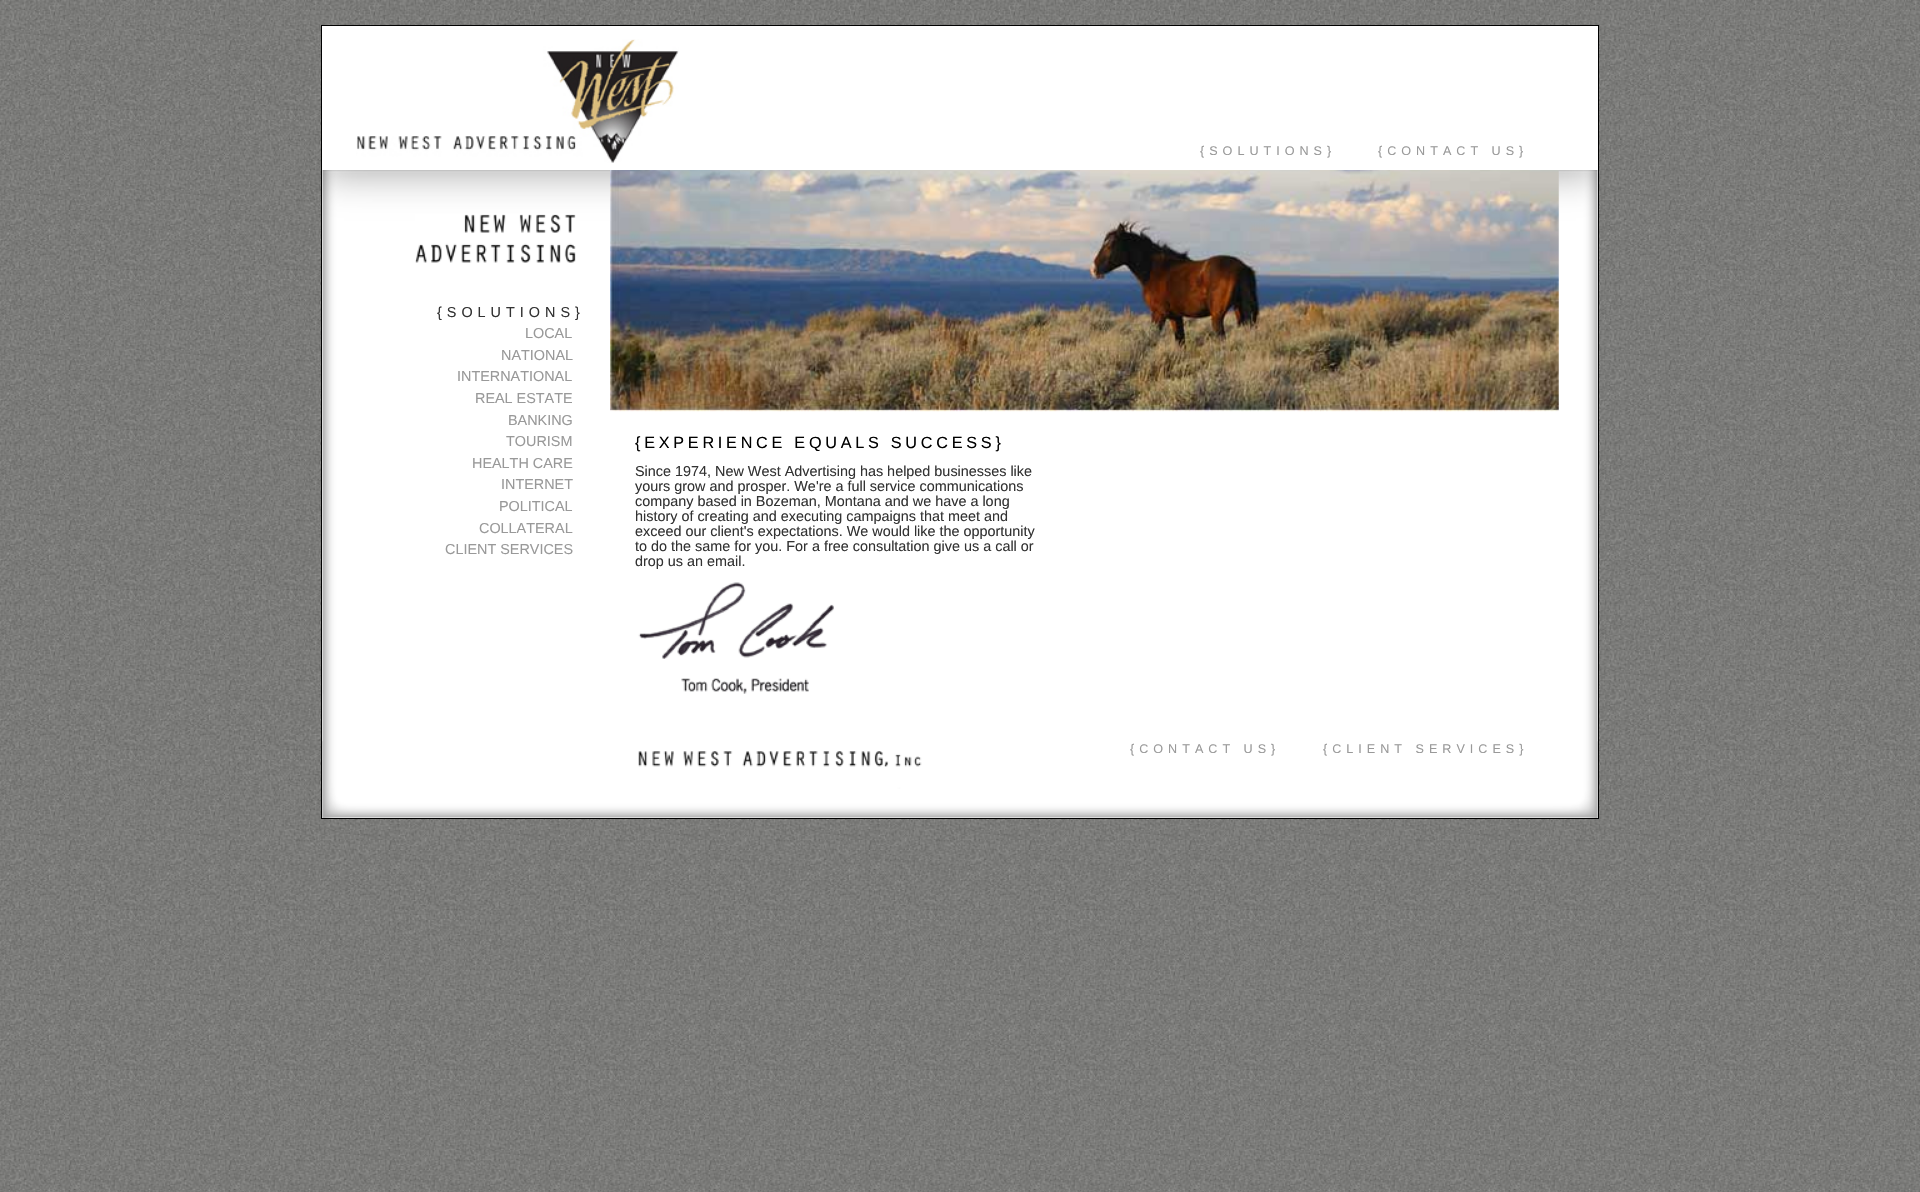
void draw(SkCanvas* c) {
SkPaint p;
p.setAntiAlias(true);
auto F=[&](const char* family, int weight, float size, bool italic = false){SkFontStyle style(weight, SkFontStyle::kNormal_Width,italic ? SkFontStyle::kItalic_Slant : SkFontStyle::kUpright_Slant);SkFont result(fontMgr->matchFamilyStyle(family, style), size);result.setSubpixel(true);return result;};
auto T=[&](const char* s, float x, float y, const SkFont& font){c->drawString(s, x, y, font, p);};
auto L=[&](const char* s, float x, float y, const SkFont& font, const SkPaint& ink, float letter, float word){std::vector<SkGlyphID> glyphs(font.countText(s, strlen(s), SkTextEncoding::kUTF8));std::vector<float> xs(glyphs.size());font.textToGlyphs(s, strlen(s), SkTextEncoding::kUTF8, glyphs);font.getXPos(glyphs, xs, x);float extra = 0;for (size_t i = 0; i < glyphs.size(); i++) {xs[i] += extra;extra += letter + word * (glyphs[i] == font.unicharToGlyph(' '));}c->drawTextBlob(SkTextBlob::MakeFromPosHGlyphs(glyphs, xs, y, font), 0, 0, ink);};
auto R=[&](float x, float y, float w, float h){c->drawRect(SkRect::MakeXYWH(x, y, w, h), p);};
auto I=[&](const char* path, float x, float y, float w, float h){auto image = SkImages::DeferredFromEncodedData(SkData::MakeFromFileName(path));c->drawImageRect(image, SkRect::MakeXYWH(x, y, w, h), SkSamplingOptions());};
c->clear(0xffffffff);
I("1.png",0,0,1920,1192);
p.setColor(0xffffffff);
R(322,26,1276,792);
I("2.png",322,170,1276,648);
p.setStroke(true);
p.setStrokeWidth(1);
p.setColor(0xff000000);
c->drawRect(SkRect::MakeXYWH(321.5,25.5,1277,793),p);
I("3.png",356,39,323,124);
auto f1 = F("Liberation Sans",400,12.6);
p.setStroke(false);
p.setColor(0xff999999);
L("{SOLUTIONS}",1200,155,f1,p,5,0);
L("{CONTACT US}",1378,155,f1,p,5,0);
I("4.png",415,214,161,49);
auto f2 = F("Liberation Sans",400,14.4);
p.setColor(0xff333333);
L("{SOLUTIONS}",437,317,f2,p,5,0);
p.setColor(0xff999999);
T("LOCAL",525,338,f2);
T("NATIONAL",501,360,f2);
T("INTERNATIONAL",457,381,f2);
T("REAL ESTATE",475,403,f2);
T("BANKING",508,425,f2);
T("TOURISM",506,446,f2);
T("HEALTH CARE",472,468,f2);
T("INTERNET",501,489,f2);
T("POLITICAL",499,511,f2);
T("COLLATERAL",479,533,f2);
T("CLIENT SERVICES",445,554,f2);
I("5.png",610,170,949,242);
auto f3 = F("Liberation Sans",400,16.2);
p.setColor(0xff000000);
L("{EXPERIENCE EQUALS SUCCESS}",635,448,f3,p,3.75,0);
p.setColor(0xff333333);
T("Since 1974, New West Advertising has helped businesses like",635,476,f2);
T("yours grow and prosper. We're a full service communications",635,491,f2);
T("company based in Bozeman, Montana and we have a long",635,506,f2);
T("history of creating and executing campaigns that meet and",635,521,f2);
T("exceed our client's expectations. We would like the opportunity",635,536,f2);
T("to do the same for you. For a free consultation give us a call or",635,551,f2);
T("drop us an email.",635,566,f2);
I("6.png",638,582,196,112);
I("7.png",322,741,1276,77);
p.setColor(0xff999999);
L("{CONTACT US}",1130,753,f1,p,5,0);
L("{CLIENT SERVICES}",1323,753,f1,p,5,0);
I("8.png",638,751,284,16);
}
